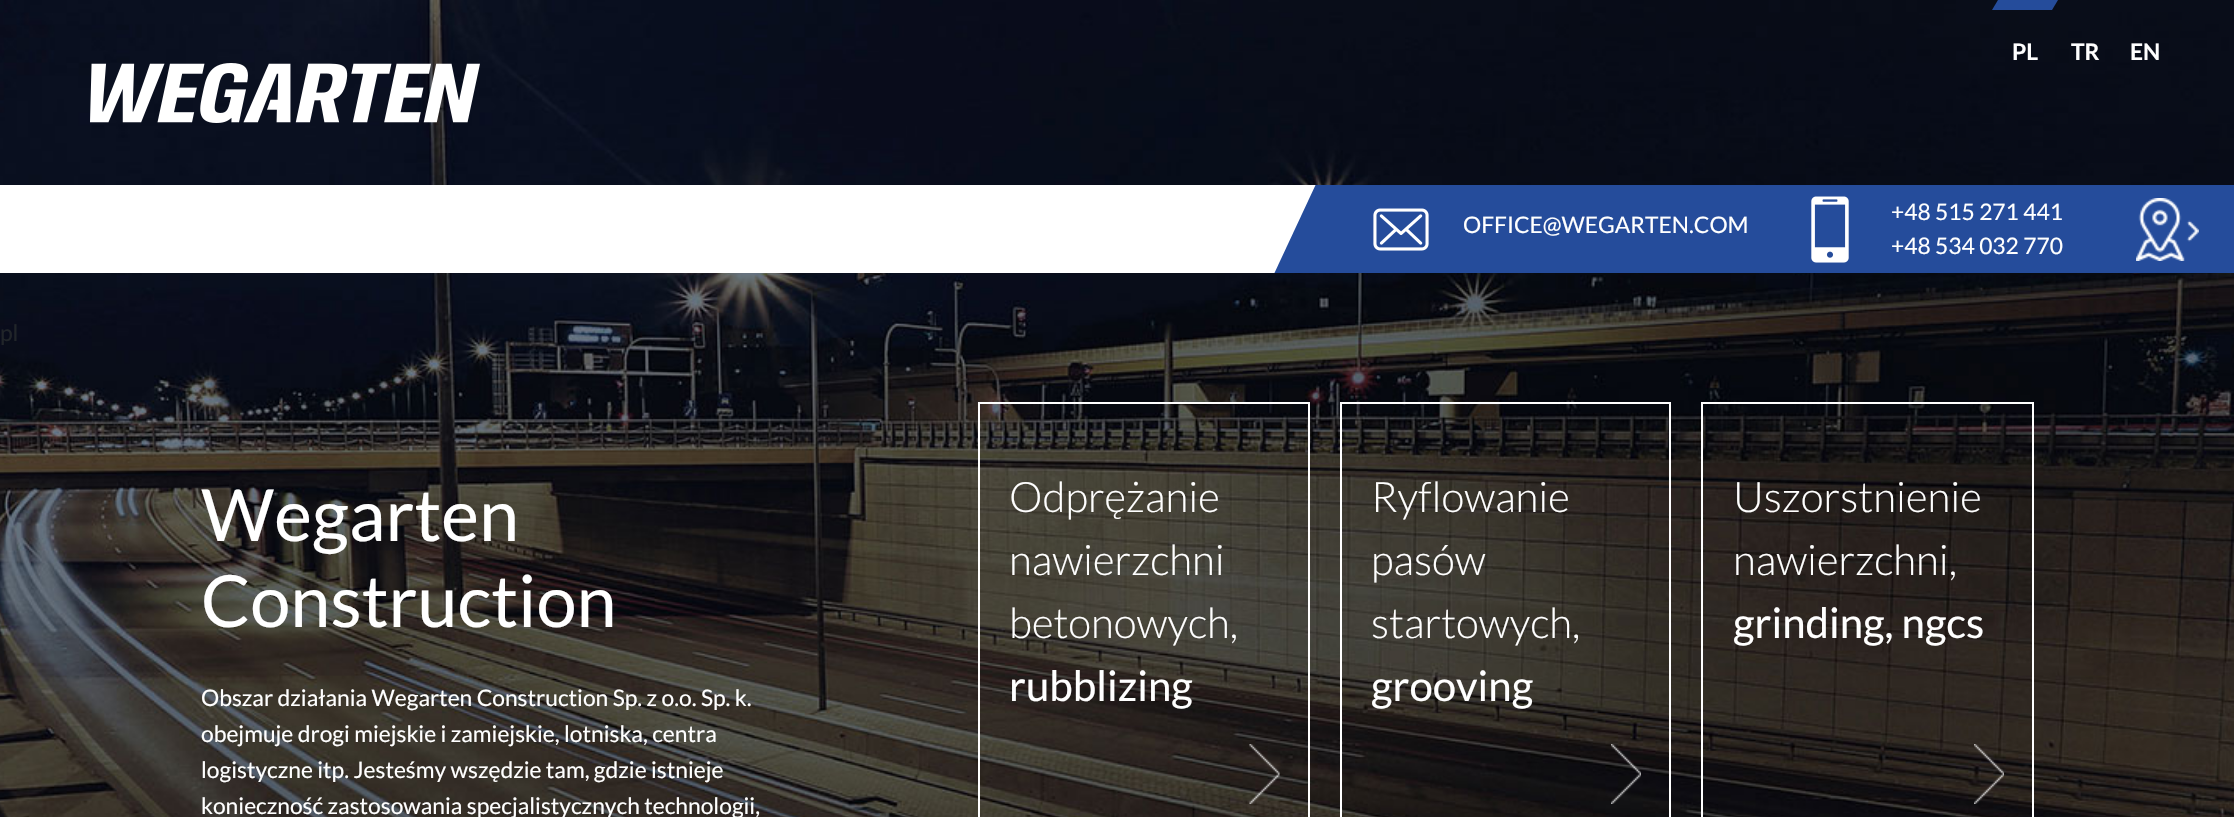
void draw(SkCanvas* c) {
SkPaint p;
p.setAntiAlias(true);
auto F=[&](const char* family, int weight, float size, bool italic = false){SkFontStyle style(weight, SkFontStyle::kNormal_Width,italic ? SkFontStyle::kItalic_Slant : SkFontStyle::kUpright_Slant);SkFont result(fontMgr->matchFamilyStyle(family, style), size);result.setSubpixel(true);return result;};
auto T=[&](const char* s, float x, float y, const SkFont& font){c->drawString(s, x, y, font, p);};
auto R=[&](float x, float y, float w, float h){c->drawRect(SkRect::MakeXYWH(x, y, w, h), p);};
auto I=[&](const char* path, float x, float y, float w, float h){auto image = SkImages::DeferredFromEncodedData(SkData::MakeFromFileName(path));c->drawImageRect(image, SkRect::MakeXYWH(x, y, w, h), SkSamplingOptions());};
auto P=[&](const char* data, bool evenOdd = false){SkPath result = *SkParsePath::FromSVGString(data);if (evenOdd) result.setFillType(SkPathFillType::kEvenOdd);return result;};
c->clear(0xffffffff);
I("1.png",0,0,2234,817);
p.setColor(0xff254c9b);
c->drawPath(P("M1998 0h60l-6 10h-60z"),p);
auto f1 = F("Lato",700,22.8);
p.setColor(0xffffffff);
T("PL",2012,60,f1);
T("TR",2071,60,f1);
T("EN",2130,60,f1);
I("2.png",90,63,390,60);
R(0,185,1316,88);
c->save();
c->clipRect(SkRect::MakeXYWH(1274,185,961,88));
p.setColor(0xff254c9b);
c->drawPath(P("M1316 184h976l-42 90h-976z"),p);
c->restore();
I("3.png",1373,208,56,43);
auto f2 = F("Lato",400,22.8);
p.setColor(0xffffffff);
T("OFFICE@WEGARTEN.COM",1463,233,f2);
I("4.png",1811,196,38,67);
T("+48 515 271 441",1891,220,f2);
T("+48 534 032 770",1891,254,f2);
I("5.png",2136,198,63,63);
p.setColor(0xff212529);
T("pl",0,341,f2);
auto f3 = F("Lato",400,72);
p.setColor(0xffffffff);
T("Wegarten",201,541,f3);
T("Construction",201,627,f3);
T("Obszar działania Wegarten Construction Sp. z o.o. Sp. k.",201,706,f2);
T("obejmuje drogi miejskie i zamiejskie, lotniska, centra",201,742,f2);
T("logistyczne itp. Jesteśmy wszędzie tam, gdzie istnieje",201,778,f2);
T("konieczność zastosowania specjalistycznych technologii,",201,814,f2);
p.setStroke(true);
p.setStrokeWidth(2);
c->drawRect(SkRect::MakeXYWH(979,403,330,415),p);
auto f4 = F("Lato",300,42);
p.setStroke(false);
T("Odprężanie",1009,512,f4);
T("nawierzchni",1009,575,f4);
T("betonowych,",1009,638,f4);
auto f5 = F("Lato",400,42);
T("rubblizing",1009,701,f5);
I("6.png",1249,744,31,60);
p.setStroke(true);
c->drawRect(SkRect::MakeXYWH(1341,403,329,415),p);
p.setStroke(false);
T("Ryflowanie",1371,512,f4);
T("pasów",1371,575,f4);
T("startowych,",1371,638,f4);
T("grooving",1371,701,f5);
I("7.png",1611,744,30,60);
p.setStroke(true);
c->drawRect(SkRect::MakeXYWH(1702,403,331,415),p);
p.setStroke(false);
T("Uszorstnienie",1733,512,f4);
T("nawierzchni,",1733,575,f4);
T("grinding, ngcs",1733,638,f5);
I("8.png",1974,744,30,60);
}
